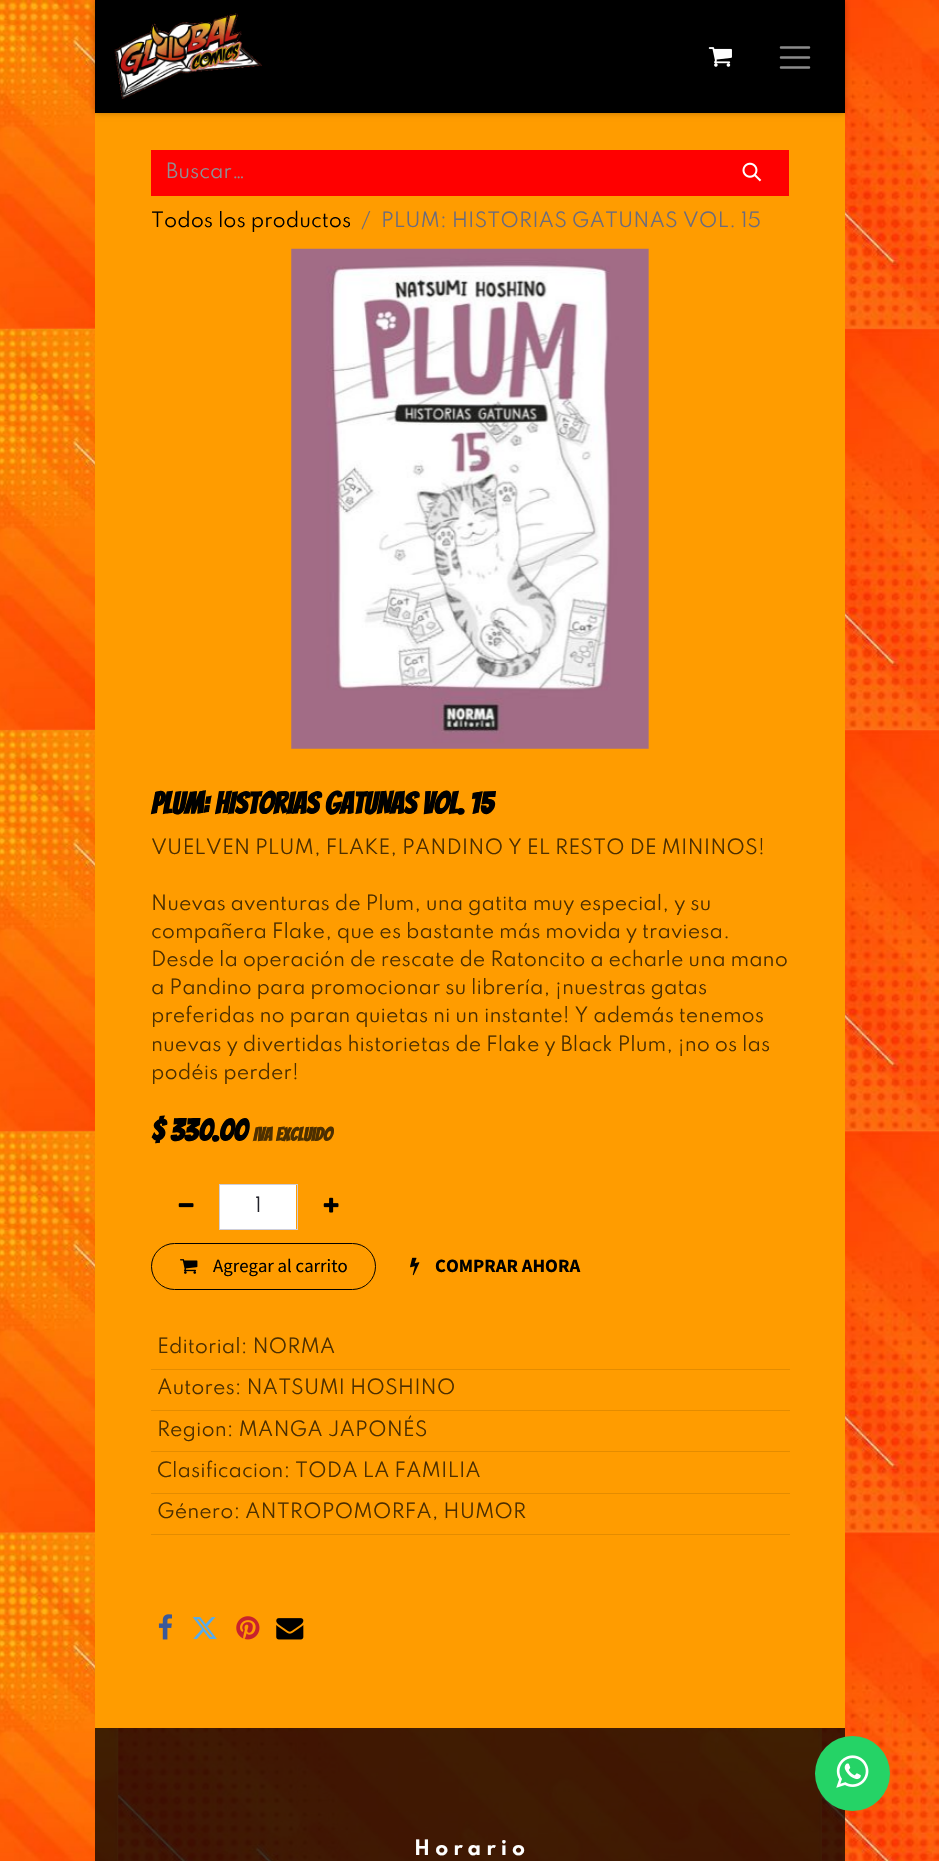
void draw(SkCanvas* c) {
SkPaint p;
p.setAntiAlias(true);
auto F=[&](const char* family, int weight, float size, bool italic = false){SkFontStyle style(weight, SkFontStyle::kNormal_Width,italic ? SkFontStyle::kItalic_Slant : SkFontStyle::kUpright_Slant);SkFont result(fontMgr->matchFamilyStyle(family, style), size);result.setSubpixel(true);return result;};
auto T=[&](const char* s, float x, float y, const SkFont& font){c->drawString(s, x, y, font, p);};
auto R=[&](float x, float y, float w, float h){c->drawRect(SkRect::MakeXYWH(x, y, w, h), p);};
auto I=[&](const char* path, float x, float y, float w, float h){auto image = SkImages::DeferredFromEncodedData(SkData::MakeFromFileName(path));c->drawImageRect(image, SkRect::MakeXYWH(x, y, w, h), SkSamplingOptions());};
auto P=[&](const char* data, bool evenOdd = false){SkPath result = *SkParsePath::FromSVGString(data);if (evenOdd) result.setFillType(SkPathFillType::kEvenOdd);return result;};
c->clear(0xffffffff);
I("1.png",0,0,939,1861);
p.setColor(0xffff9c00);
R(95,113,750,1615);
p.setColor(0x40000000);
p.setMaskFilter(SkMaskFilter::MakeBlur(kNormal_SkBlurStyle, 3));
c->drawRect(SkRect::MakeXYWH(95,0,750,113),p);
p.setMaskFilter(nullptr);
p.setColor(0xff000000);
R(95,0,750,113);
I("2.png",114,13,148,86);
I("3.png",708,47,24,20);
p.setStroke(true);
p.setStrokeWidth(2.5);
p.setStrokeCap(SkPaint::kRound_Cap);
p.setColor(0xff8c8c8c);
c->drawPath(P("M781 47.5h28m-28 10h28m-28 10h28"),p);
p.setStroke(false);
p.setColor(0xffff0000);
R(151,150,638,46);
auto f1 = F("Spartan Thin",400,18.75);
p.setColor(0xff909094);
T("Buscar…",166,178,f1);
I("4.png",742,162,20,20);
p.setColor(0xff000000);
T("Todos los productos",151,227,f1);
p.setColor(0xff6c6c7d);
T("/",361,227,f1);
T("PLUM: HISTORIAS GATUNAS VOL. 15",381,227,f1);
I("5.png",291,248,358,501);
auto f2 = F("Bangers",700,30.25);
p.setColor(0xff000000);
T("PLUM: HISTORIAS GATUNAS VOL. 15",151,814,f2);
p.setColor(0xff4d2f00);
T("VUELVEN PLUM, FLAKE, PANDINO Y EL RESTO DE MININOS!",151,854,f1);
T("Nuevas aventuras de Plum, una gatita muy especial, y su",151,910,f1);
T("compañera Flake, que es bastante más movida y traviesa.",151,938,f1);
T("Desde la operación de rescate de Ratoncito a echarle una mano",151,966,f1);
T("a Pandino para promocionar su librería, ¡nuestras gatas",151,994,f1);
T("preferidas no paran quietas ni un instante! Y además tenemos",151,1022,f1);
T("nuevas y divertidas historietas de Flake y Black Plum, ¡no os las",151,1051,f1);
T("podéis perder!",151,1079,f1);
p.setColor(0xff000000);
T("$ 330.00",151,1141,f2);
auto f3 = F("Bangers",700,18.75);
p.setColor(0xff4d2f00);
T("IVA excluido",253,1141,f3);
I("6.png",178,1203,16,5);
p.setColor(0xffffffff);
R(220,1185,76,44);
p.setStroke(true);
p.setStrokeWidth(1);
p.setStrokeCap(SkPaint::kButt_Cap);
p.setColor(0xffceceda);
c->drawRect(SkRect::MakeXYWH(219.5,1184.5,78,45),p);
p.setStroke(false);
p.setColor(0xff212129);
T("1",255,1212,f1);
I("7.png",323,1197,16,16);
p.setStroke(true);
p.setColor(0xff000000);
c->drawRoundRect(SkRect::MakeXYWH(151.5,1243.5,224,46),23,23,p);
I("8.png",180,1259,18,15);
auto f4 = F("Source Sans Pro",400,18.75);
p.setStroke(false);
T("Agregar al carrito",213,1272,f4);
I("9.png",410,1257,10,19);
auto f5 = F("Source Sans Pro",700,18.75);
T("COMPRAR AHORA",435,1272,f5);
p.setColor(0xffe48c00);
R(151,1369,639,1);
p.setColor(0xff4d2f00);
T("Editorial: NORMA",157,1353,f1);
p.setColor(0xffe48c00);
R(151,1410,639,1);
p.setColor(0xff4d2f00);
T("Autores: NATSUMI HOSHINO",157,1394,f1);
p.setColor(0xffe48c00);
R(151,1451,639,1);
p.setColor(0xff4d2f00);
T("Region: MANGA JAPONÉS",157,1436,f1);
p.setColor(0xffe48c00);
R(151,1493,639,1);
p.setColor(0xff4d2f00);
T("Clasificacion: TODA LA FAMILIA",157,1477,f1);
p.setColor(0xffe48c00);
R(151,1534,639,1);
p.setColor(0xff4d2f00);
T("Género: ANTROPOMORFA, HUMOR",157,1518,f1);
I("10.png",158,1614,14,26);
I("11.png",192,1617,25,22);
I("12.png",236,1616,24,24);
I("13.png",276,1618,28,22);
p.setColor(0xbf000000);
R(95,1728,750,133);
auto f6 = F("Spartan Thin",700,18.75);
p.setColor(0xffffffff);
T("H o r a r i o",414,1855,f6);
p.setColor(0xff25d366);
c->drawCircle(852.5,1773.5,37.5,p);
I("14.png",836,1755,33,33);
}
